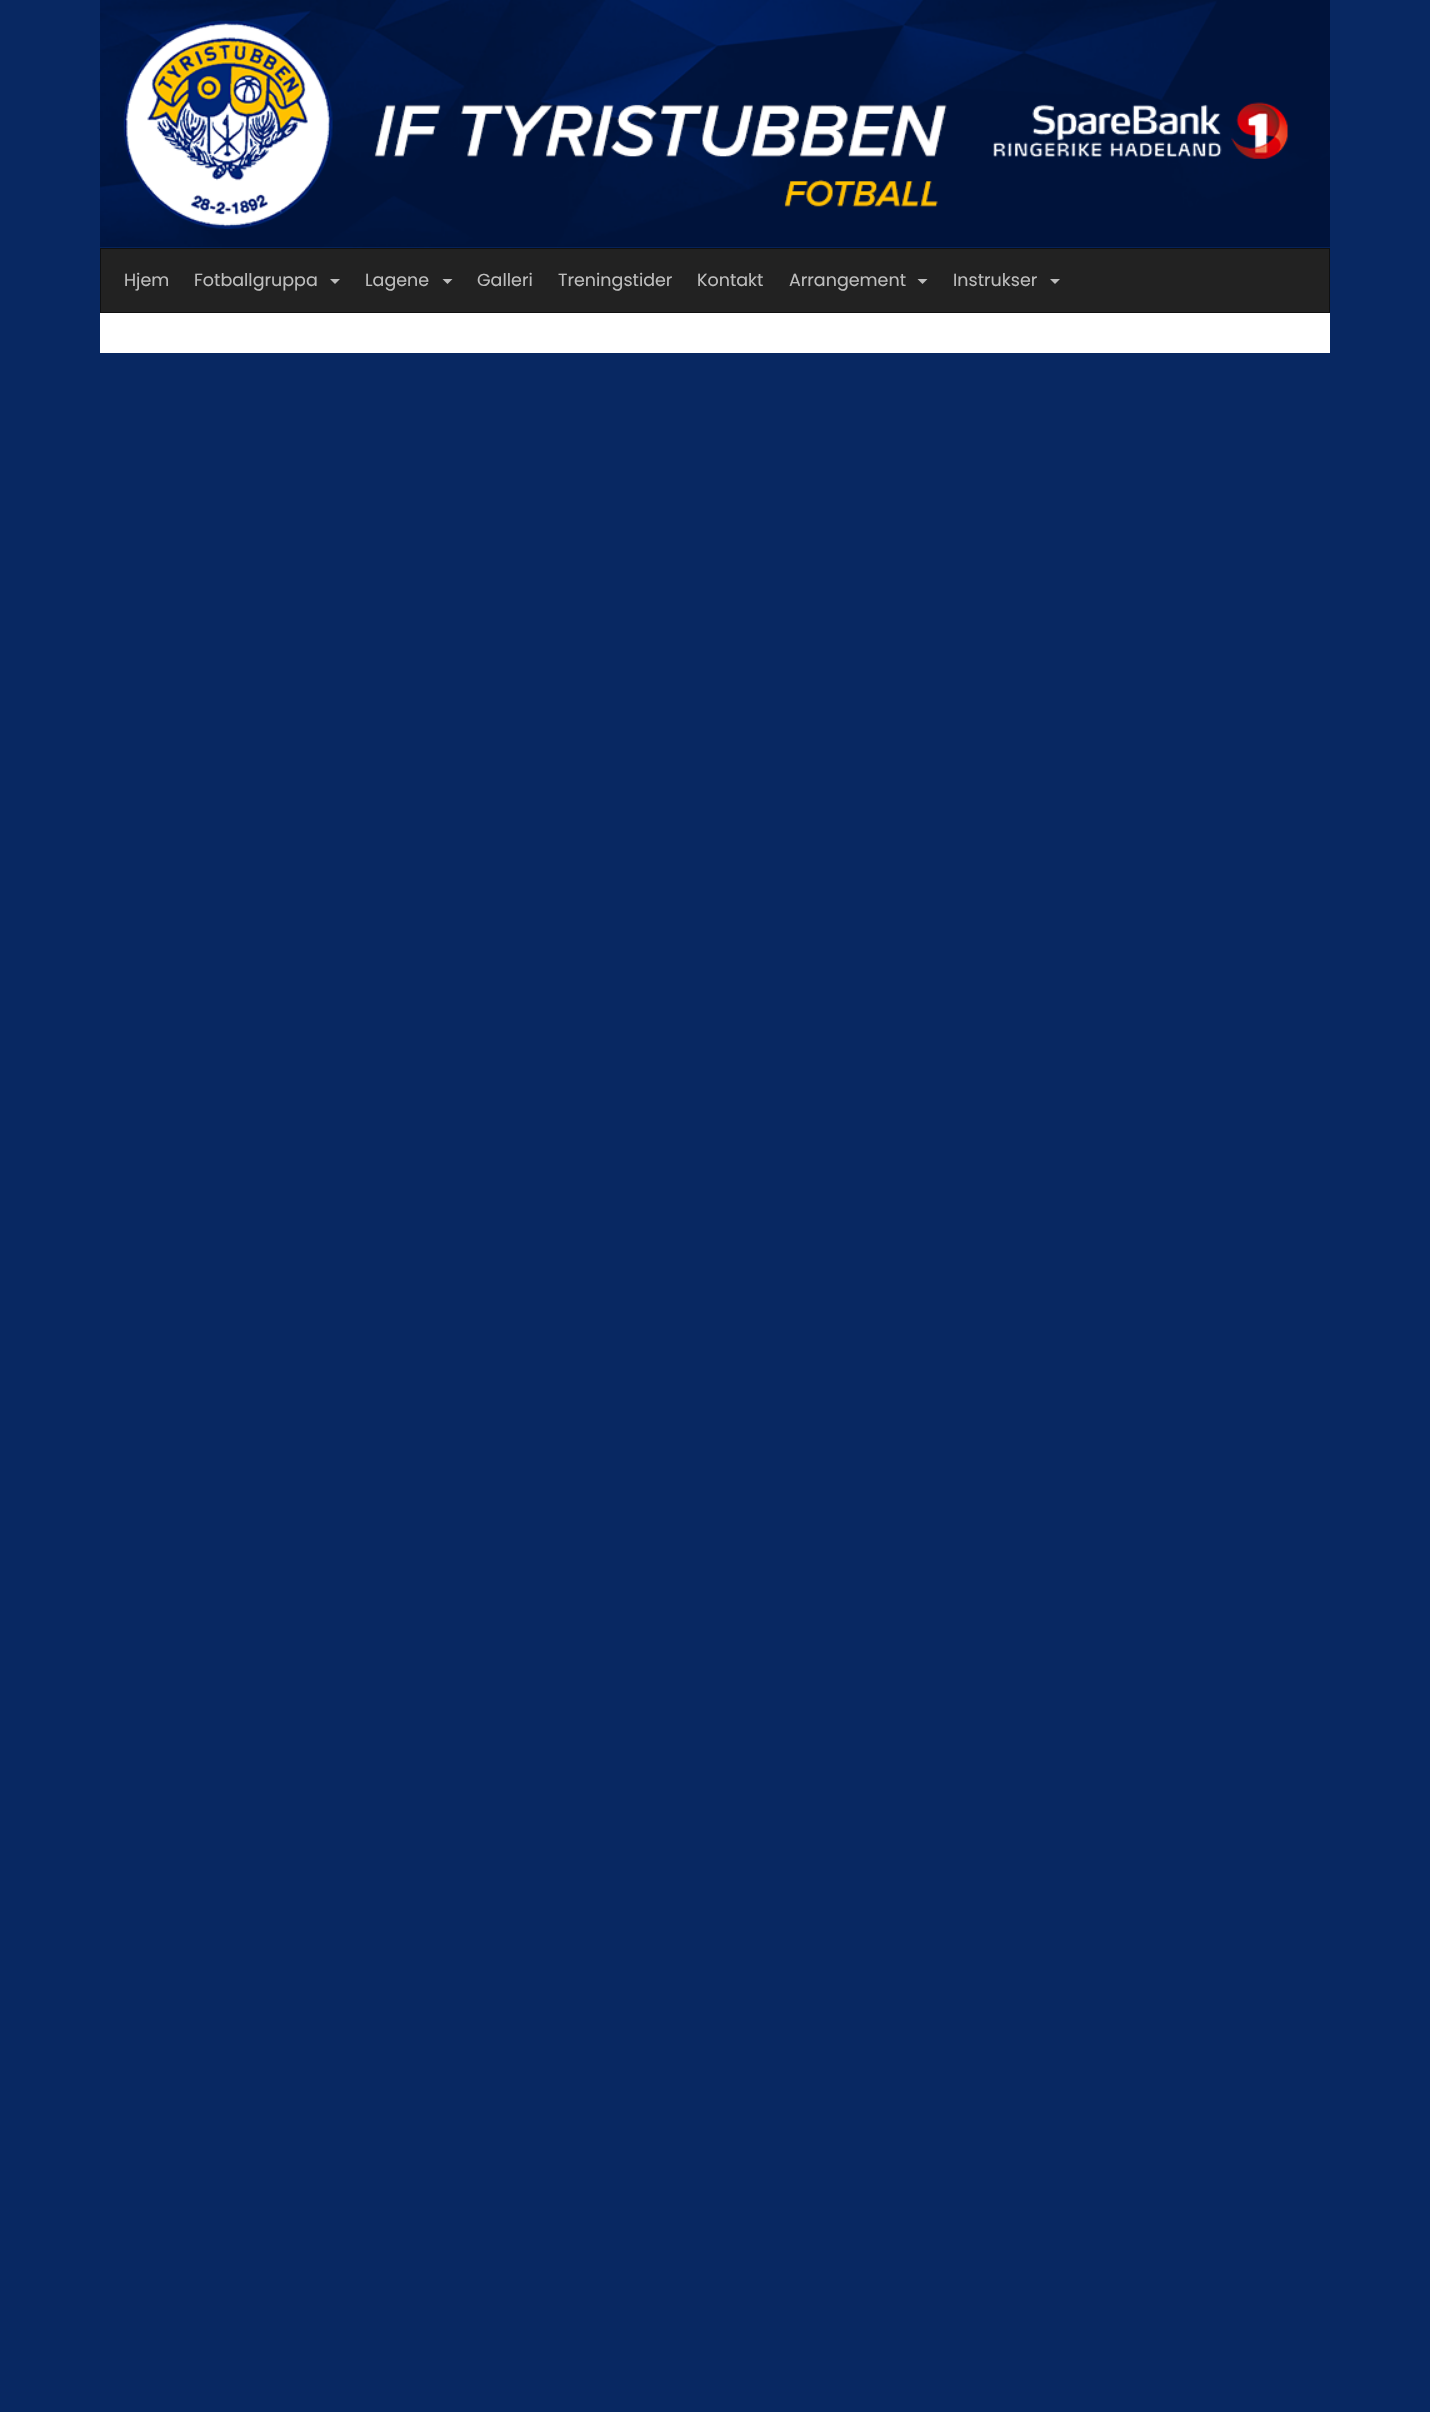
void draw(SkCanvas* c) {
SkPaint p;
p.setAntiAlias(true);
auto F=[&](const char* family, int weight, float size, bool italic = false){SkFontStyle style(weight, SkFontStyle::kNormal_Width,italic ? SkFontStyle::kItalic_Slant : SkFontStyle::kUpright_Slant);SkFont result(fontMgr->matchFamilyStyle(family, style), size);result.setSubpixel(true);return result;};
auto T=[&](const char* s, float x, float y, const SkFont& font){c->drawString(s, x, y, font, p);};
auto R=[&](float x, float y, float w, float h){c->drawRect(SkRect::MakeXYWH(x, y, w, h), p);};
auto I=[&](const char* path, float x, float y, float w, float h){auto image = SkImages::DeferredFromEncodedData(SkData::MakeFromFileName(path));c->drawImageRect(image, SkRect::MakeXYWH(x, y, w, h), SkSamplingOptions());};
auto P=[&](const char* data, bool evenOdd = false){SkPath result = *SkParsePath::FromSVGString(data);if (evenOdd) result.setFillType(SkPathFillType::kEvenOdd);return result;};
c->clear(0xff082862);
I("1.png",100,0,1230,248);
p.setColor(0xff222222);
c->drawRect(SkRect::MakeXYWH(100.5,248.5,1229,64),p);
p.setStroke(true);
p.setStrokeWidth(1);
p.setColor(0xff101010);
c->drawRect(SkRect::MakeXYWH(100.5,248.5,1229,64),p);
auto f1 = F("Poppins",400,17.5);
p.setStroke(false);
p.setColor(0xffbdbdbd);
T("Hjem",124,286,f1);
T("Fotballgruppa",194,286,f1);
c->drawPath(P("M330 279h10l-5 5z"),p);
T("Lagene",365,286,f1);
c->drawPath(P("M442.5 279h10l-5 5z"),p);
T("Galleri",477,286,f1);
T("Treningstider",558,286,f1);
T("Kontakt",697,286,f1);
T("Arrangement",789,286,f1);
c->drawPath(P("M917.5 279h10l-5 5z"),p);
T("Instrukser",953,286,f1);
c->drawPath(P("M1050 279h10l-5 5z"),p);
p.setColor(0xffffffff);
R(100,313,1230,40);
}
